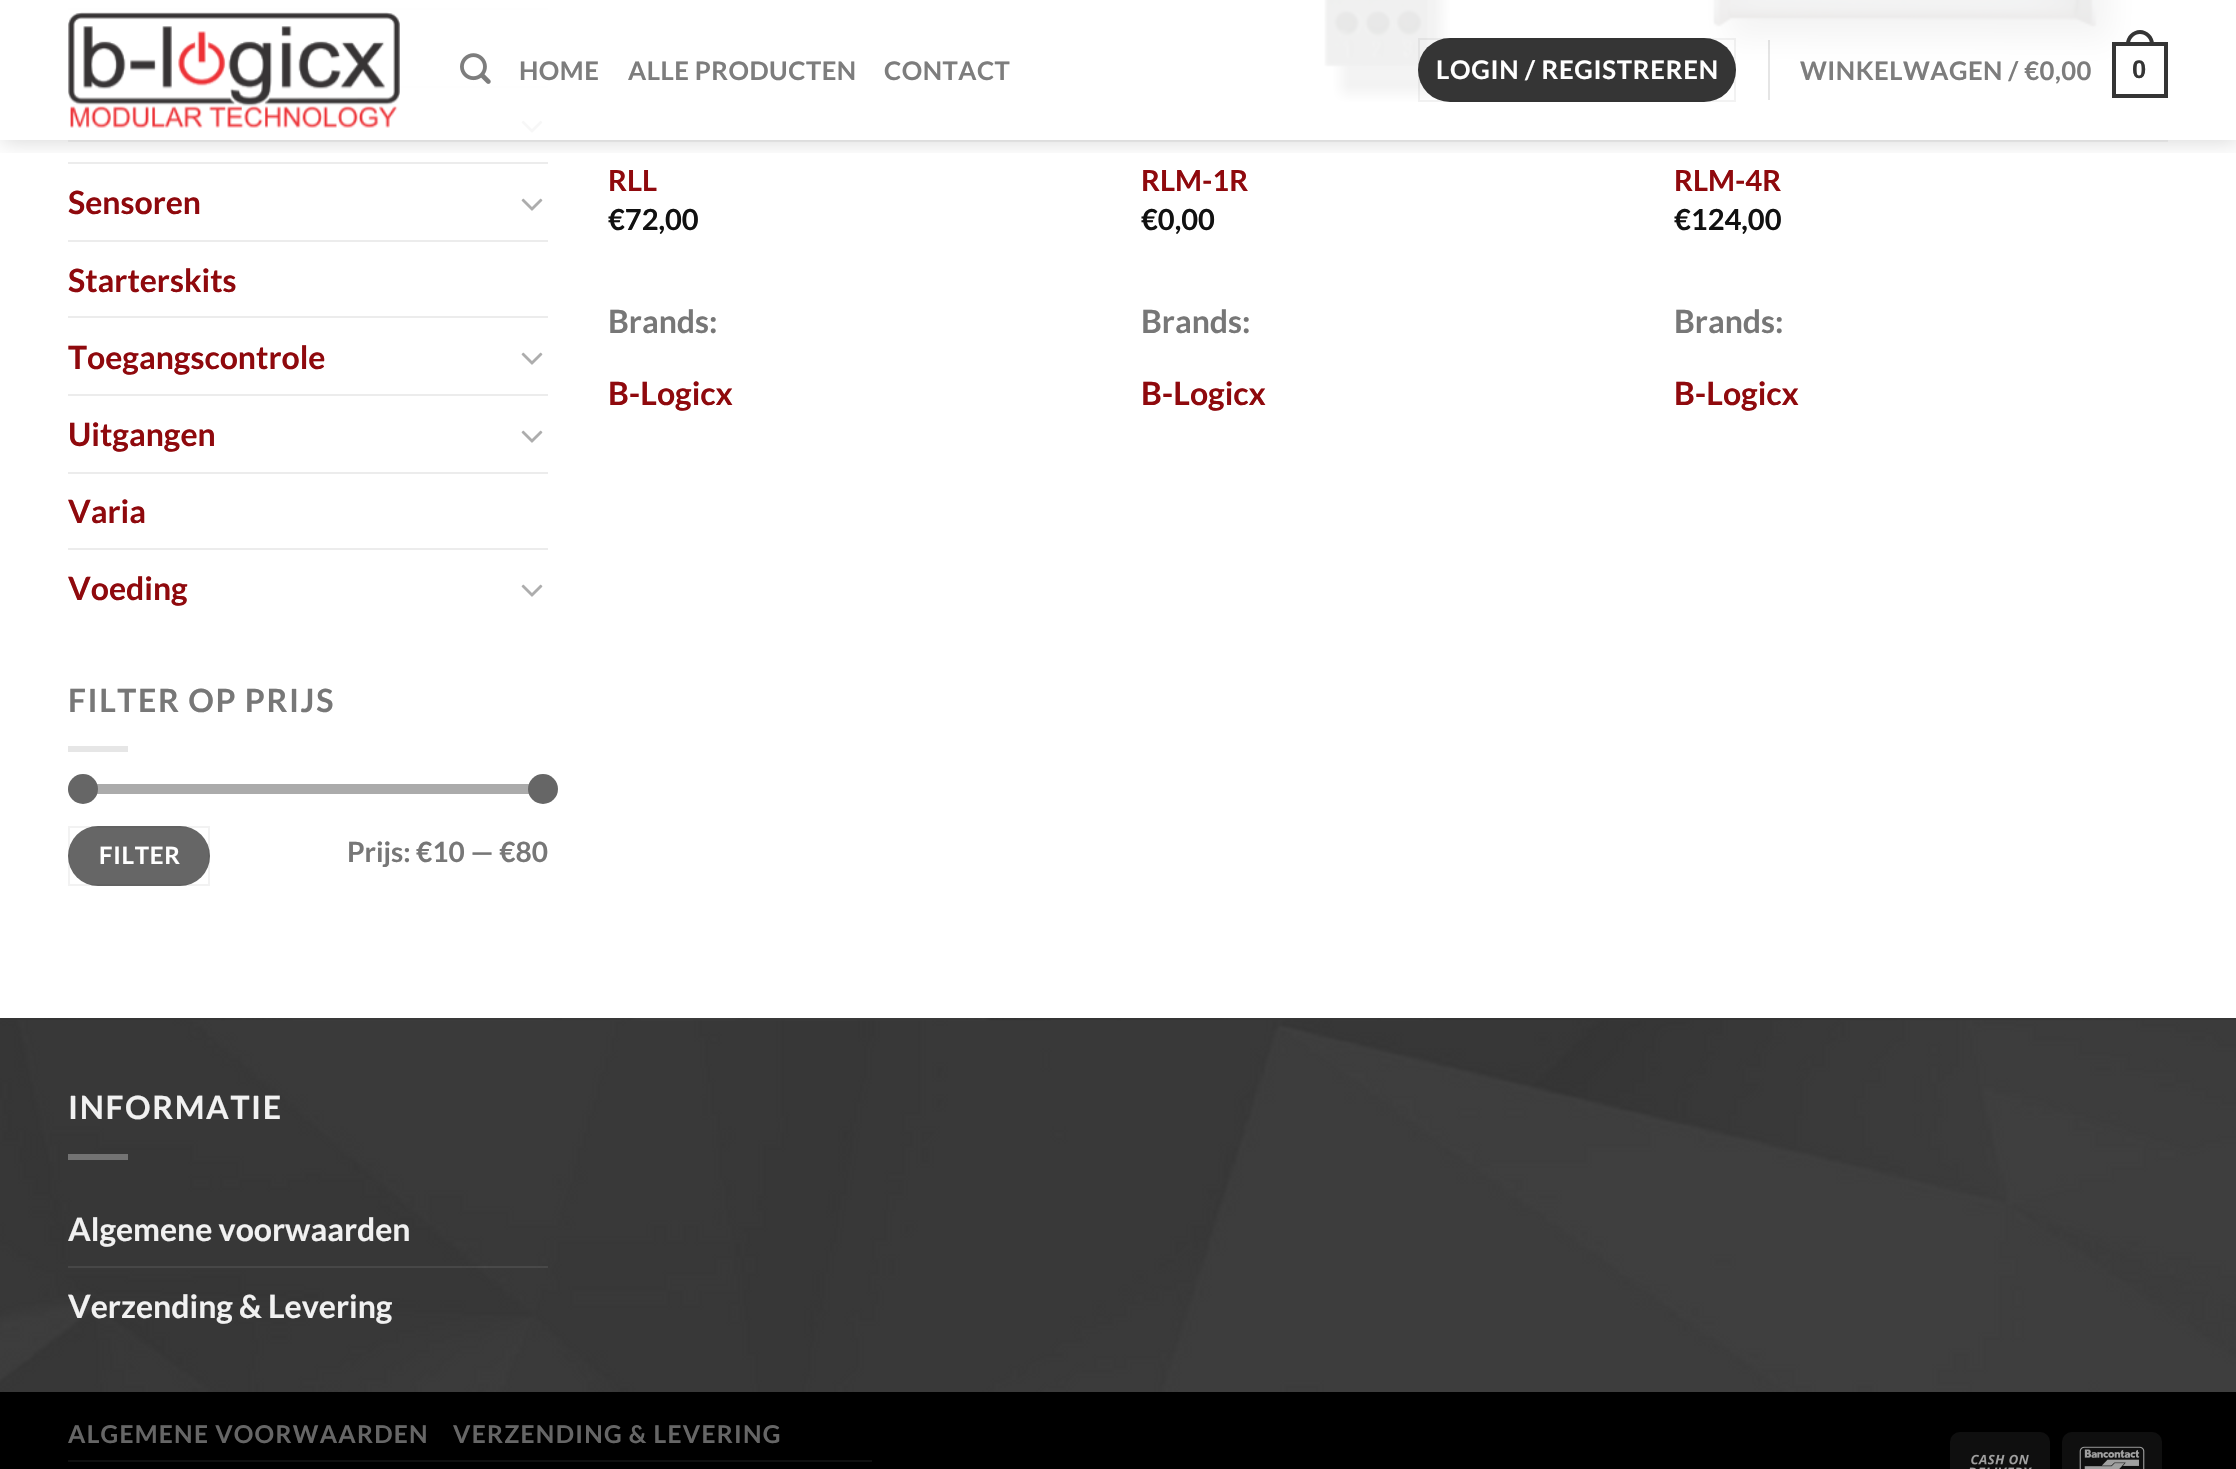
void draw(SkCanvas* c) {
SkPaint p;
p.setAntiAlias(true);
auto F=[&](const char* family, int weight, float size, bool italic = false){SkFontStyle style(weight, SkFontStyle::kNormal_Width,italic ? SkFontStyle::kItalic_Slant : SkFontStyle::kUpright_Slant);SkFont result(fontMgr->matchFamilyStyle(family, style), size);result.setSubpixel(true);return result;};
auto T=[&](const char* s, float x, float y, const SkFont& font){c->drawString(s, x, y, font, p);};
auto L=[&](const char* s, float x, float y, const SkFont& font, const SkPaint& ink, float letter, float word){std::vector<SkGlyphID> glyphs(font.countText(s, strlen(s), SkTextEncoding::kUTF8));std::vector<float> xs(glyphs.size());font.textToGlyphs(s, strlen(s), SkTextEncoding::kUTF8, glyphs);font.getXPos(glyphs, xs, x);float extra = 0;for (size_t i = 0; i < glyphs.size(); i++) {xs[i] += extra;extra += letter + word * (glyphs[i] == font.unicharToGlyph(' '));}c->drawTextBlob(SkTextBlob::MakeFromPosHGlyphs(glyphs, xs, y, font), 0, 0, ink);};
auto R=[&](float x, float y, float w, float h){c->drawRect(SkRect::MakeXYWH(x, y, w, h), p);};
auto Q=[&](float x, float y, float w, float h, float radius){c->drawRoundRect(SkRect::MakeXYWH(x, y, w, h), radius, radius, p);};
auto I=[&](const char* path, float x, float y, float w, float h){auto image = SkImages::DeferredFromEncodedData(SkData::MakeFromFileName(path));c->drawImageRect(image, SkRect::MakeXYWH(x, y, w, h), SkSamplingOptions());};
auto P=[&](const char* data, bool evenOdd = false){SkPath result = *SkParsePath::FromSVGString(data);if (evenOdd) result.setFillType(SkPathFillType::kEvenOdd);return result;};
c->clear(0xffffffff);
p.setColor(0xffececec);
R(68,8,480,2);
R(400,86,148,2);
I("3.png",521,120,22,13);
R(68,162,480,2);
I("4.png",1324,0,127,103);
I("5.png",1705,0,430,65);
c->save();
c->clipRect(SkRect::MakeXYWH(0,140,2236,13));
p.setColor(0x26000000);
p.setMaskFilter(SkMaskFilter::MakeBlur(kNormal_SkBlurStyle, 10));
c->drawRect(SkRect::MakeXYWH(2,2,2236,140),p);
p.setMaskFilter(nullptr);
c->restore();
p.setColor(0xe6ffffff);
R(68,0,2067,133);
I("1.png",68,12,332,116);
I("2.png",460,53,31,31);
auto f1 = F("Lato",700,25.6);
p.setColor(0xff7d7d7d);
L("HOME",519,80,f1,p,.5,0);
L("ALLE PRODUCTEN",628,80,f1,p,.5,0);
L("CONTACT",884,80,f1,p,.5,0);
p.setColor(0xff353535);
Q(1418,38,318,64,32);
p.setStroke(true);
p.setStrokeWidth(2);
p.setColor(0x0d000000);
c->drawRect(SkRect::MakeXYWH(1419,39,316,62),p);
p.setStroke(false);
p.setColor(0xffffffff);
L("LOGIN / REGISTREREN",1436,79,f1,p,.75,0);
p.setColor(0x1a000000);
R(1768,40,2,60);
p.setColor(0xff7d7d7d);
L("WINKELWAGEN / €0,00",1800,80,f1,p,.5,0);
p.setStroke(true);
p.setStrokeWidth(4);
p.setColor(0xff353535);
c->drawRect(SkRect::MakeXYWH(2114,44,52,52),p);
p.setStroke(false);
c->drawPath(P("M2140 30c7.5 0 14 6.5 14 14v2h-28v-2c0-7.5 6.5-14 14-14zm0 4c5.5 0 10 4.5 10 10v2h-20v-2c0-5.5 4.5-10 10-10z",true),p);
auto f2 = F("Liberation Sans",700,25.6);
L("0",2132,78,f2,p,.5,0);
p.setColor(0x1a777777);
R(68,140,2100,2);
auto f3 = F("Lato",700,32);
p.setColor(0xff8f090d);
T("Sensoren",68,214,f3);
I("3.png",521,198,22,13);
p.setColor(0xffececec);
R(68,240,480,2);
p.setColor(0xff8f090d);
T("Starterskits",68,292,f3);
p.setColor(0xffececec);
R(68,316,480,2);
p.setColor(0xff8f090d);
T("Toegangscontrole",68,369,f3);
I("3.png",521,352,22,13);
p.setColor(0xffececec);
R(68,394,480,2);
p.setColor(0xff8f090d);
T("Uitgangen",68,446,f3);
I("3.png",521,430,22,13);
p.setColor(0xffececec);
R(68,472,480,2);
p.setColor(0xff8f090d);
T("Varia",68,523,f3);
p.setColor(0xffececec);
R(68,548,480,2);
p.setColor(0xff8f090d);
T("Voeding",68,600,f3);
I("3.png",521,584,22,13);
p.setColor(0xff777777);
L("FILTER OP PRIJS",68,712,f3,p,1.6,0);
p.setColor(0xffe6e6e6);
R(68,746,60,6);
p.setColor(0xfff1f1f1);
Q(68,784,480,10,5);
p.setColor(0x80666666);
Q(68,784,480,10,5);
p.setColor(0xff666666);
c->drawCircle(83,789,15,p);
c->drawCircle(543,789,15,p);
Q(68,826,142,60,30);
p.setStroke(true);
p.setStrokeWidth(2);
p.setColor(0x0d000000);
c->drawRect(SkRect::MakeXYWH(69,827,140,58),p);
auto f4 = F("Lato",700,24);
p.setStroke(false);
p.setColor(0xffffffff);
L("FILTER",99,864,f4,p,.75,0);
auto f5 = F("Lato",700,28);
p.setColor(0xff777777);
T("Prijs: €10 — €80",347,862,f5);
auto f6 = F("Lato",700,29);
p.setColor(0xff8f090d);
T("RLL",608,191,f6);
p.setColor(0xff111111);
T("€72,00",608,230,f6);
p.setColor(0xff777777);
T("Brands:",608,333,f3);
p.setColor(0xff8f090d);
T("B-Logicx",608,405,f3);
T("RLM-1R",1141,191,f6);
p.setColor(0xff111111);
T("€0,00",1141,230,f6);
p.setColor(0xff777777);
T("Brands:",1141,333,f3);
p.setColor(0xff8f090d);
T("B-Logicx",1141,405,f3);
T("RLM-4R",1674,191,f6);
p.setColor(0xff111111);
T("€124,00",1674,230,f6);
p.setColor(0xff777777);
T("Brands:",1674,333,f3);
p.setColor(0xff8f090d);
T("B-Logicx",1674,405,f3);
I("6.png",0,1018,2236,374);
p.setColor(0x0d000000);
R(0,1018,2236,2);
p.setColor(0xfff1f1f1);
L("INFORMATIE",68,1119,f3,p,1.6,0);
p.setColor(0xff737373);
R(68,1154,60,6);
p.setColor(0xfff1f1f1);
T("Algemene voorwaarden",68,1241,f3);
p.setColor(0x14ffffff);
R(68,1266,480,2);
p.setColor(0xfff1f1f1);
T("Verzending & Levering",68,1318,f3);
p.setColor(0xff000000);
R(0,1392,2236,77);
p.setColor(0xff101010);
R(68,1460,804,2);
auto f7 = F("Lato",700,24.5);
p.setColor(0xff666666);
L("ALGEMENE VOORWAARDEN",68,1443,f7,p,1.25,0);
L("VERZENDING & LEVERING",453,1443,f7,p,1.25,0);
p.setColor(0xff0f0f0f);
Q(1950,1432,100,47,10);
I("7.png",1969,1454,63,15);
Q(2062,1432,100,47,10);
I("8.png",2079,1446,66,23);
}
